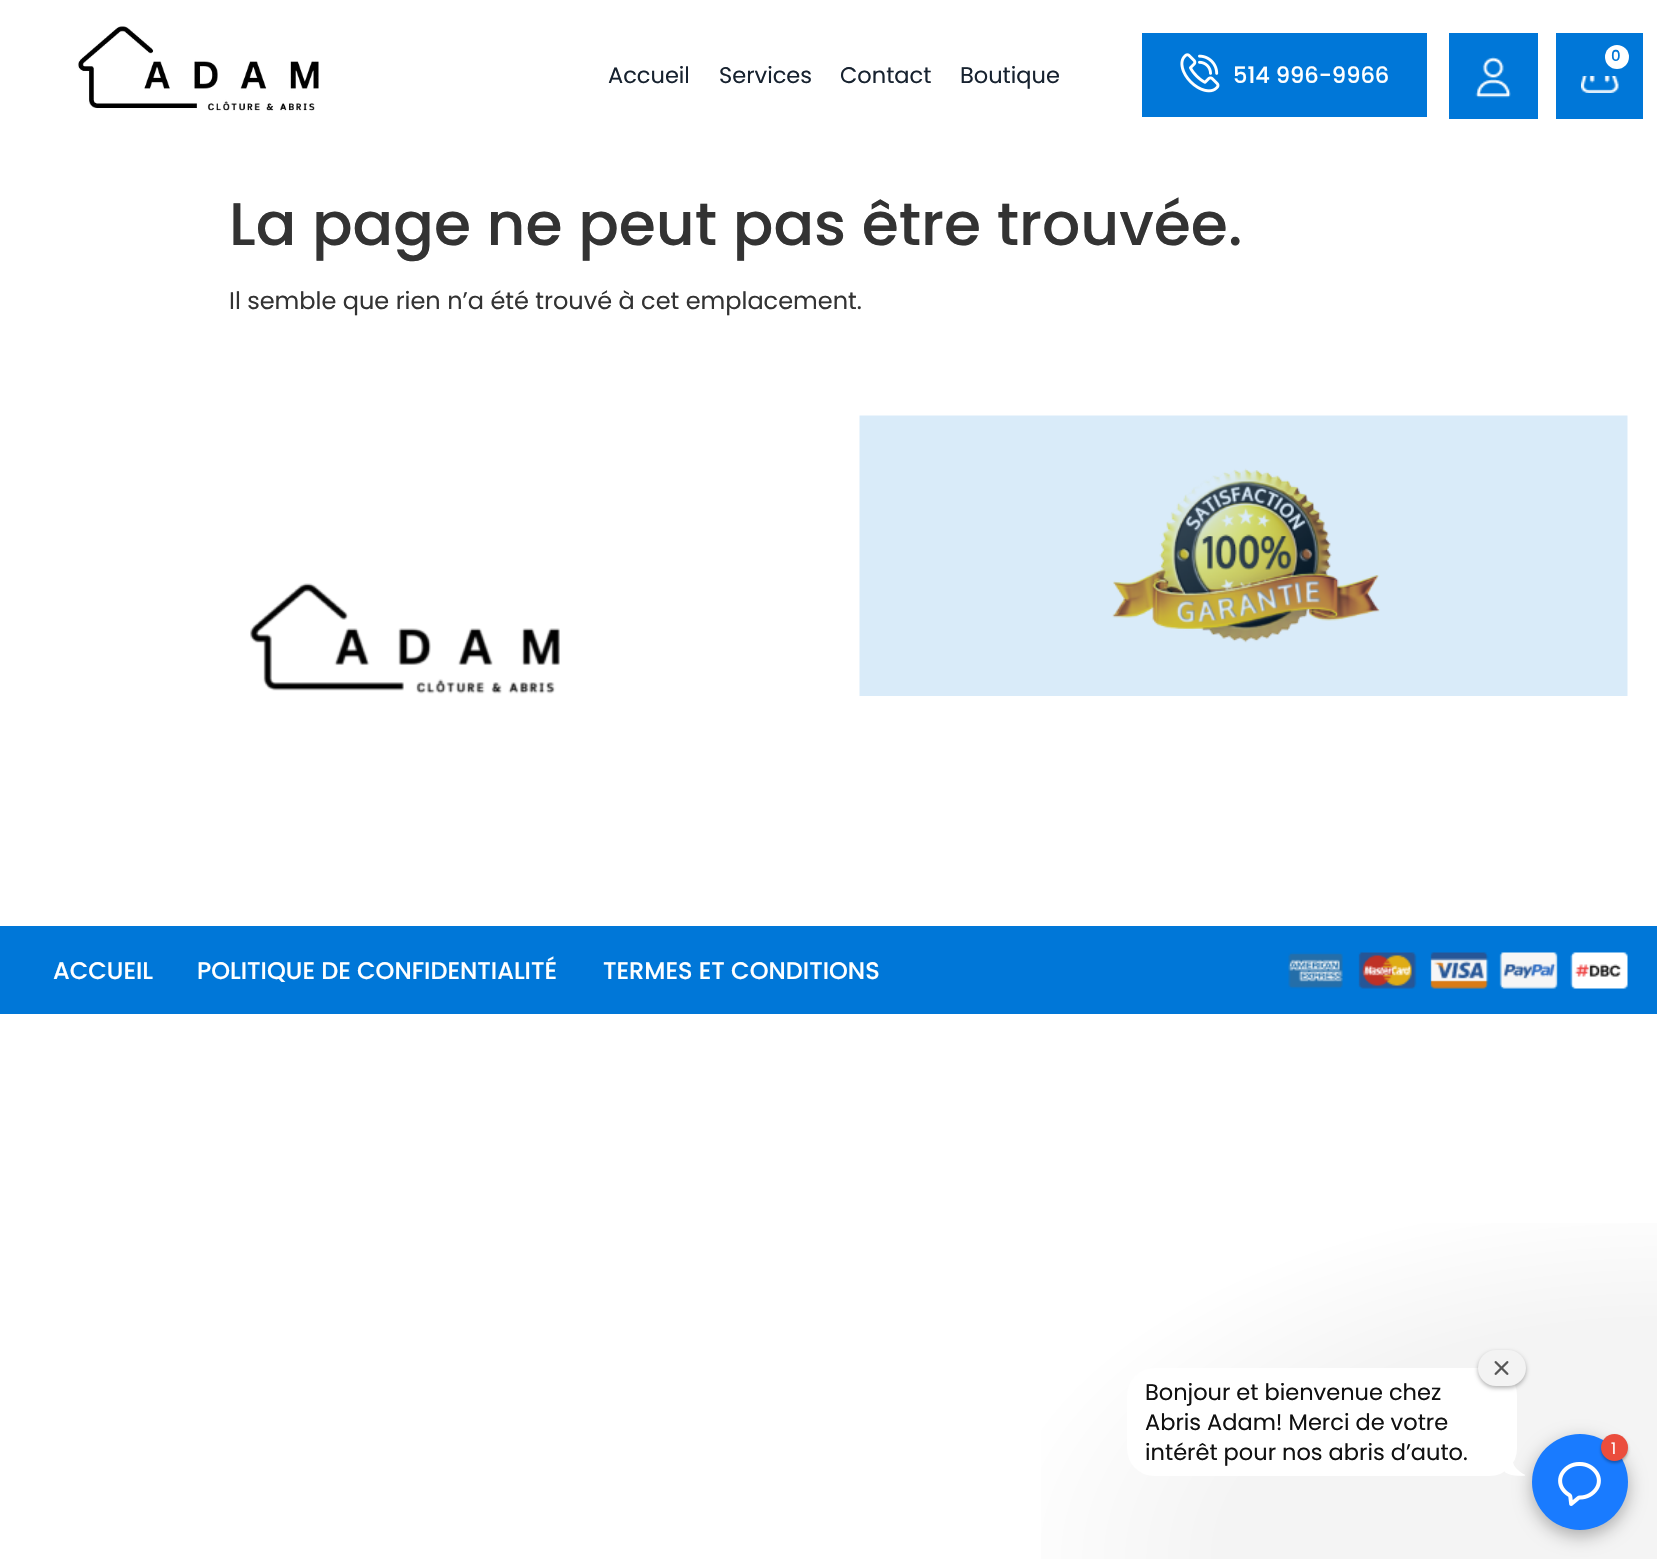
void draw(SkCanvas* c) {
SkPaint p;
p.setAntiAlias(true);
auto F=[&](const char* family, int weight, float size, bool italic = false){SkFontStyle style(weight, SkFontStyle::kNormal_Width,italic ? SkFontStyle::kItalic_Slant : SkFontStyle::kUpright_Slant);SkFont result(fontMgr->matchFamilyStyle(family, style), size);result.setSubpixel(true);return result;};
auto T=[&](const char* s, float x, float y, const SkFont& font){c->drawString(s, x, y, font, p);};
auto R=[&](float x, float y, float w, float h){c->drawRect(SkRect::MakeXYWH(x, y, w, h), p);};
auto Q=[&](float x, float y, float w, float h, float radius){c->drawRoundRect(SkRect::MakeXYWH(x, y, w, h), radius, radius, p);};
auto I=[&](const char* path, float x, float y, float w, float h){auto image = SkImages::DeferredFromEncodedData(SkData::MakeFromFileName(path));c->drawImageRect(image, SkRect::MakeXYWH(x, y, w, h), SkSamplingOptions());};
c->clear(0xffffffff);
I("1.png",77,26,242,85);
auto f1 = F("Poppins",400,22.5);
p.setColor(0xff17222f);
T("Accueil",608,83,f1);
T("Services",719,83,f1);
T("Contact",840,83,f1);
T("Boutique",960,83,f1);
p.setColor(0xff0077d8);
R(1449,33,89,86);
I("2.png",1475,56,36,42);
R(1556,33,87,86);
p.setColor(0xffffffff);
c->drawCircle(1617,57,12,p);
auto f2 = F("Poppins",500,15);
p.setColor(0xff0077d8);
T("0",1611,61,f2);
I("3.png",1581,76,38,17);
R(1142,33,285,84);
I("4.png",1180,53,40,40);
auto f3 = F("Poppins",500,22.5);
p.setColor(0xffffffff);
T("514 996-9966",1233,83,f3);
auto f4 = F("Poppins",500,60);
p.setColor(0xff333333);
T("La page ne peut pas être trouvée.",229,245,f4);
auto f5 = F("Poppins",400,24);
T("Il semble que rien n’a été trouvé à cet emplacement.",229,309,f5);
I("5.png",250,583,310,111);
I("6.png",859,415,769,281);
p.setColor(0xff0077d8);
R(0,926,1657,88);
auto f6 = F("Poppins",500,24);
p.setColor(0xffffffff);
T("ACCUEIL",53,979,f6);
T("POLITIQUE DE CONFIDENTIALITÉ",197,979,f6);
T("TERMES ET CONDITIONS",603,979,f6);
I("7.png",1288,952,340,37);
{
const SkColor colors[] = {0xfff4f4f4,0xffffffff};
const float stops[] = {.65,1};
SkMatrix m = SkMatrix::Translate(1658,1560).preScale(672,366);
p.setShader(SkGradientShader::MakeRadial({0, 0}, 1, colors, stops, 2, SkTileMode::kClamp, 0, &m));
p.setAlpha(255);
}
R(1041,1223,616,336);
p.setShader(nullptr);
p.setColor(0x4d000000);
p.setMaskFilter(SkMaskFilter::MakeBlur(kNormal_SkBlurStyle, 9));
c->drawRoundRect(SkRect::MakeXYWH(1532,1440,96,96),48,48,p);
p.setMaskFilter(nullptr);
p.setColor(0xffffffff);
Q(1127,1368,390,108,27);
p.setColor(0x4d000000);
p.setMaskFilter(SkMaskFilter::MakeBlur(kNormal_SkBlurStyle, 2));
c->drawRoundRect(SkRect::MakeXYWH(1478,1352,48,36),18,18,p);
p.setMaskFilter(nullptr);
p.setColor(0xfff3f3f3);
Q(1478,1350,48,36,18);
I("8.png",1494,1361,15,14);
p.setColor(0xff111111);
T("Bonjour et bienvenue chez",1145,1400,f1);
T("Abris Adam! Merci de votre",1145,1430,f1);
T("intérêt pour nos abris d’auto.",1145,1460,f1);
I("9.png",1505,1463,20,13);
p.setColor(0xff197bff);
c->drawCircle(1580,1482,48,p);
I("10.png",1558,1462,43,44);
p.setColor(0x4d000000);
p.setMaskFilter(SkMaskFilter::MakeBlur(kNormal_SkBlurStyle, 1.5));
c->drawRoundRect(SkRect::MakeXYWH(1601,1436,27,27),13.5,13.5,p);
p.setMaskFilter(nullptr);
p.setColor(0xffeb4d3d);
c->drawCircle(1614.5,1447.5,13.5,p);
auto f7 = F("Poppins",400,16);
p.setColor(0xffffffff);
T("1",1611,1454,f7);
}
